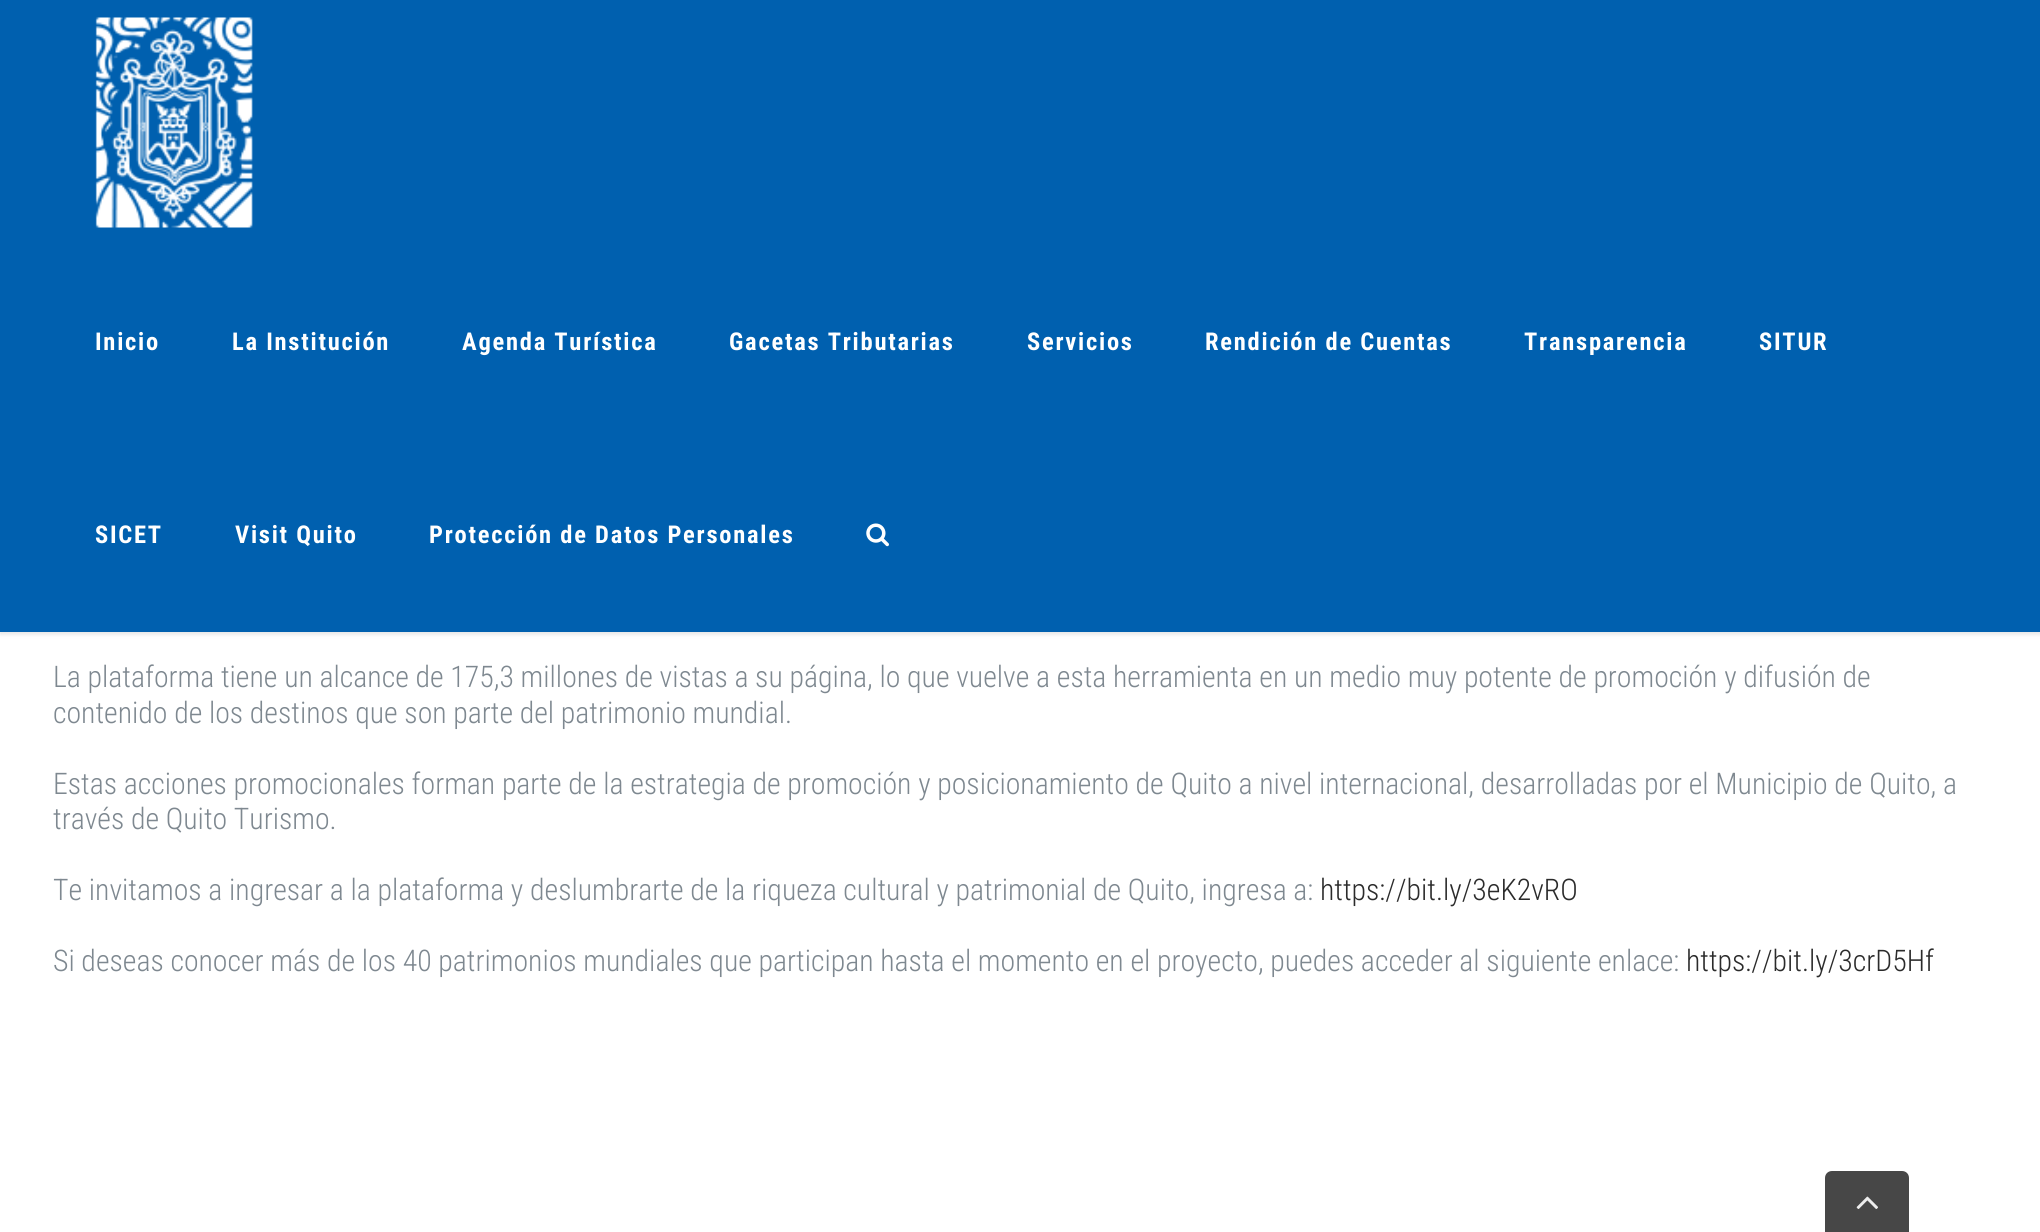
#include <cairo/cairo.h>
#include <math.h>
#include <stddef.h>


static void draw_spaced(cairo_t *cr, double x, double y, const char *s, double letter, double word) {
  cairo_move_to(cr, x, y);
  while (*s) {
    char ch[5] = {0};
    int n = 0;
    do ch[n++] = *s++; while ((*s & 0xC0) == 0x80);
    cairo_show_text(cr, ch);
    cairo_rel_move_to(cr, letter + word * (*ch == ' '), 0);
  }
}

static void rounded_rect(cairo_t *cr, double x, double y, double w, double h, double r) {
  cairo_new_sub_path(cr);
  cairo_arc(cr, x + w - r, y + h - r, r, 0, M_PI / 2);
  cairo_arc(cr, x + r, y + h - r, r, M_PI / 2, M_PI);
  cairo_arc(cr, x + r, y + r, r, M_PI, 1.5 * M_PI);
  cairo_arc(cr, x + w - r, y + r, r, 1.5 * M_PI, 2 * M_PI);
  cairo_close_path(cr);
}

static void draw_shadow(cairo_t *cr, double x, double y, double w, double h, double r, double blur, double alpha) {
  cairo_push_group_with_content(cr, CAIRO_CONTENT_ALPHA);
  cairo_set_operator(cr, CAIRO_OPERATOR_SOURCE);
  for (int i = 15; i >= -15 && fmin(w, h) + blur * i / 3 > 0; i -= 2) {
    double e = blur * i / 6;
    cairo_set_source_rgba(cr, 0, 0, 0, alpha * erfc((i - 1) / 8.5) / 2);
    rounded_rect(cr, x - e, y - e, w + 2 * e, h + 2 * e, fmax(0, fmin(r + e + blur * .6, fmin(w, h) / 2 + e)));
    cairo_fill(cr);
  }
  cairo_pattern_t *soft = cairo_pop_group(cr);
  cairo_mask(cr, soft);
  cairo_pattern_destroy(soft);
}

static void draw_image(cairo_t *cr, const char *path, double x, double y, double w, double h) {
  cairo_surface_t *image = cairo_image_surface_create_from_png(path);
  cairo_save(cr);
  cairo_set_source_surface(cr, image, x, y);
  cairo_rectangle(cr, x, y, w, h);
  cairo_fill(cr);
  cairo_restore(cr);
  cairo_surface_destroy(image);
}

static void draw(cairo_t *cr) {
  cairo_set_source_rgb(cr, 1, 1, 1);
  cairo_paint(cr);
  cairo_set_source_rgb(cr, 0, 0, 0);
  draw_shadow(cr, 0, 2, 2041, 632, 0, 2.5, 0.12);
  cairo_set_source_rgb(cr, 0, 96 / 255.0, 175 / 255.0);
  cairo_rectangle(cr, 0, 0, 2040, 632);
  cairo_fill(cr);
  draw_image(cr, "images/1.png", 95, 17, 158, 211);
  draw_image(cr, "images/2.png", 866, 523, 23, 24);
  cairo_set_source_rgb(cr, 71 / 255.0, 71 / 255.0, 71 / 255.0);
  cairo_new_path(cr);
  cairo_move_to(cr, 1832, 1171);
  cairo_line_to(cr, 1902, 1171);
  cairo_curve_to(cr, 1906, 1171, 1909, 1174, 1909, 1178);
  cairo_line_to(cr, 1909, 1232);
  cairo_line_to(cr, 1825, 1232);
  cairo_line_to(cr, 1825, 1178);
  cairo_curve_to(cr, 1825, 1174, 1828, 1171, 1832, 1171);
  cairo_close_path(cr);
  cairo_fill(cr);
  draw_image(cr, "images/3.png", 1856, 1196, 22, 13);
  cairo_select_font_face(cr, "Roboto Condensed", CAIRO_FONT_SLANT_NORMAL, CAIRO_FONT_WEIGHT_BOLD);
  cairo_set_font_size(cr, 24.5);
  cairo_set_source_rgb(cr, 1, 1, 1);
  draw_spaced(cr, 95, 350, "Inicio", 1.75, 0);
  draw_spaced(cr, 232, 350, "La Institución", 1.75, 0);
  draw_spaced(cr, 462, 350, "Agenda Turística", 1.75, 0);
  draw_spaced(cr, 729, 350, "Gacetas Tributarias", 1.75, 0);
  draw_spaced(cr, 1027, 350, "Servicios", 1.75, 0);
  draw_spaced(cr, 1205, 350, "Rendición de Cuentas", 1.75, 0);
  draw_spaced(cr, 1524, 350, "Transparencia", 1.75, 0);
  draw_spaced(cr, 1759, 350, "SITUR", 1.75, 0);
  draw_spaced(cr, 95, 543, "SICET", 1.75, 0);
  draw_spaced(cr, 235, 543, "Visit Quito", 1.75, 0);
  draw_spaced(cr, 429, 543, "Protección de Datos Personales", 1.75, 0);
  cairo_select_font_face(cr, "Roboto Condensed Light", CAIRO_FONT_SLANT_NORMAL, CAIRO_FONT_WEIGHT_NORMAL);
  cairo_set_font_size(cr, 29.75);
  cairo_set_source_rgb(cr, 126 / 255.0, 136 / 255.0, 144 / 255.0);
  cairo_move_to(cr, 53, 687);
  cairo_show_text(cr, "La plataforma tiene un alcance de 175,3 millones de vistas a su página, lo que vuelve a esta herramienta en un medio muy potente de promoción y difusión de");
  cairo_move_to(cr, 53, 723);
  cairo_show_text(cr, "contenido de los destinos que son parte del patrimonio mundial.");
  cairo_move_to(cr, 53, 794);
  cairo_show_text(cr, "Estas acciones promocionales forman parte de la estrategia de promoción y posicionamiento de Quito a nivel internacional, desarrolladas por el Municipio de Quito, a");
  cairo_move_to(cr, 53, 829);
  cairo_show_text(cr, "través de Quito Turismo.");
  cairo_move_to(cr, 53, 900);
  cairo_show_text(cr, "Te invitamos a ingresar a la plataforma y deslumbrarte de la riqueza cultural y patrimonial de Quito, ingresa a:");
  cairo_set_source_rgb(cr, 43 / 255.0, 43 / 255.0, 43 / 255.0);
  cairo_move_to(cr, 1320, 900);
  cairo_show_text(cr, "https://bit.ly/3eK2vRO");
  cairo_set_source_rgb(cr, 126 / 255.0, 136 / 255.0, 144 / 255.0);
  cairo_move_to(cr, 53, 971);
  cairo_show_text(cr, "Si deseas conocer más de los 40 patrimonios mundiales que participan hasta el momento en el proyecto, puedes acceder al siguiente enlace:");
  cairo_set_source_rgb(cr, 43 / 255.0, 43 / 255.0, 43 / 255.0);
  cairo_move_to(cr, 1686, 971);
  cairo_show_text(cr, "https://bit.ly/3crD5Hf");
}

int main(void) {
  cairo_surface_t *surface = cairo_image_surface_create(CAIRO_FORMAT_RGB24, 2040, 1232);
  cairo_t *cr = cairo_create(surface);
  cairo_font_options_t *options = cairo_font_options_create();
  cairo_font_options_set_hint_metrics(options, CAIRO_HINT_METRICS_OFF);
  cairo_font_options_set_hint_style(options, CAIRO_HINT_STYLE_NONE);
  cairo_set_font_options(cr, options);
  cairo_set_miter_limit(cr, 4);
  draw(cr);
  cairo_surface_write_to_png(surface, "out.png");
  cairo_font_options_destroy(options);
  cairo_destroy(cr);
  cairo_surface_destroy(surface);
  return 0;
}
